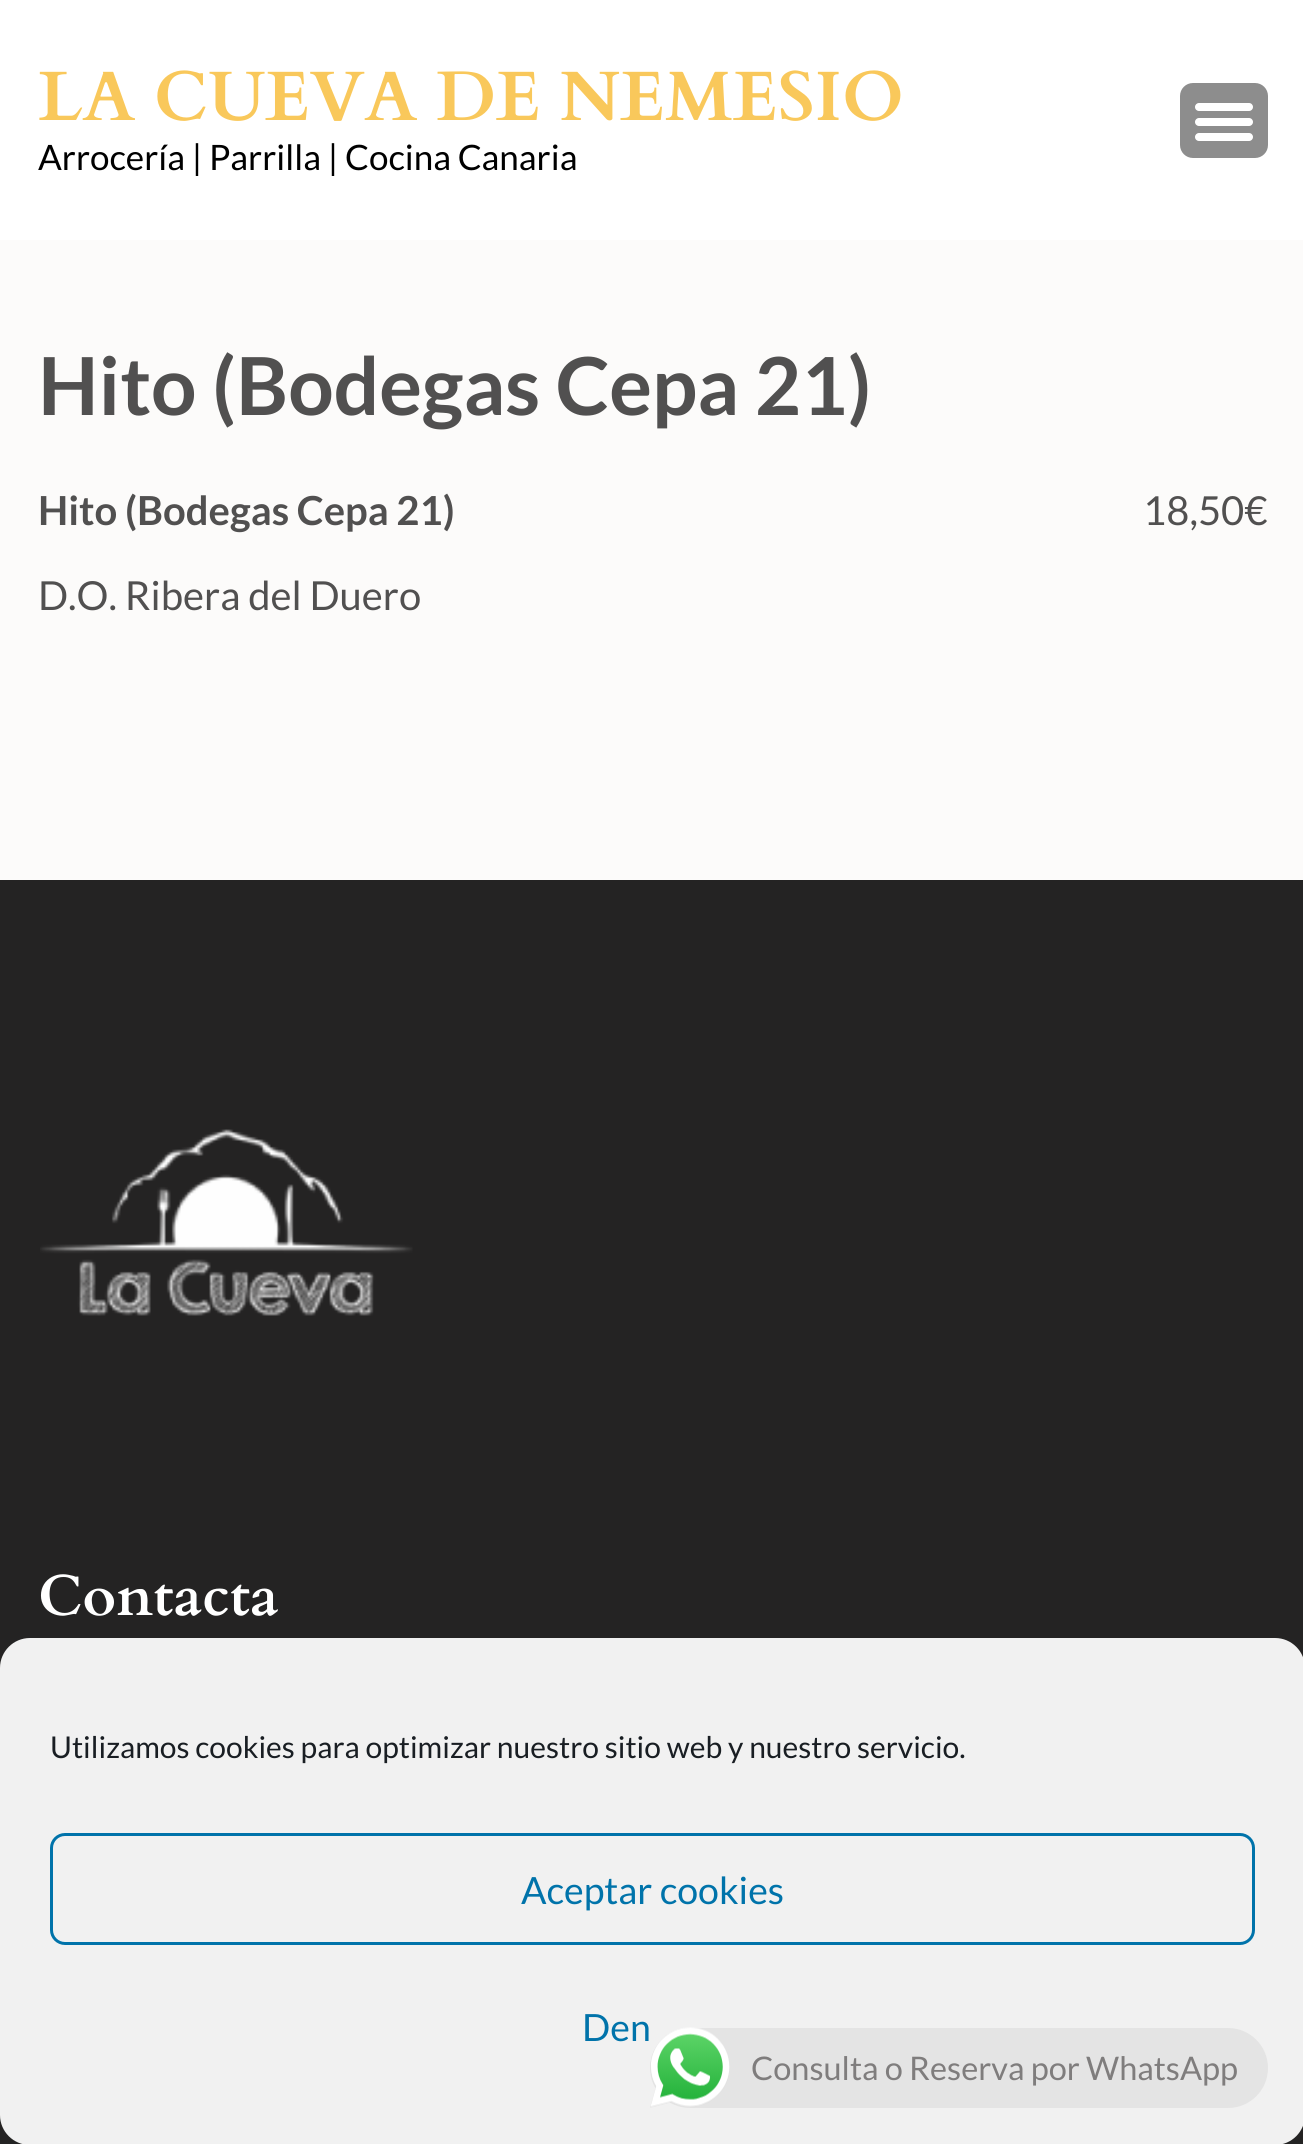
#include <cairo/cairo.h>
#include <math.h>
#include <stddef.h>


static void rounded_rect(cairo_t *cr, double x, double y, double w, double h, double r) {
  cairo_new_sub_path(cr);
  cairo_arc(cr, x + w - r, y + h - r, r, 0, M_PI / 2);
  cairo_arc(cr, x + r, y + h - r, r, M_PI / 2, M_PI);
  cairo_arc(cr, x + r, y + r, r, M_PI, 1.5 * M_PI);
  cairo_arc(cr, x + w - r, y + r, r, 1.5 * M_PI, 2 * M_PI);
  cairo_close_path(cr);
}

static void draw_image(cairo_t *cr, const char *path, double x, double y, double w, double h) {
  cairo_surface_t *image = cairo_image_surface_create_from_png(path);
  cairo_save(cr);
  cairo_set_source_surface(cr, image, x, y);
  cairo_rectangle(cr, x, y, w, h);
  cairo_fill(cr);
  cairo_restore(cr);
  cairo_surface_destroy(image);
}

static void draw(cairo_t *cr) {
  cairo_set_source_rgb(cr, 252 / 255.0, 251 / 255.0, 250 / 255.0);
  cairo_paint(cr);
  cairo_set_source_rgb(cr, 1, 1, 1);
  cairo_rectangle(cr, 0, 0, 1303, 240);
  cairo_fill(cr);
  cairo_set_source_rgb(cr, 141 / 255.0, 141 / 255.0, 141 / 255.0);
  rounded_rect(cr, 1181.5, 84.5, 85, 72, 11.5);
  cairo_fill_preserve(cr);
  cairo_set_line_width(cr, 3);
  cairo_stroke(cr);
  cairo_set_source_rgb(cr, 1, 1, 1);
  rounded_rect(cr, 1195, 103, 58, 8, 4);
  cairo_fill(cr);
  rounded_rect(cr, 1195, 118, 58, 8, 4);
  cairo_fill(cr);
  rounded_rect(cr, 1195, 133, 58, 8, 4);
  cairo_fill(cr);
  cairo_set_source_rgb(cr, 36 / 255.0, 35 / 255.0, 35 / 255.0);
  cairo_rectangle(cr, 0, 880, 1303, 1264);
  cairo_fill(cr);
  draw_image(cr, "images/1.png", 40, 1129, 373, 187);
  cairo_set_source_rgb(cr, 241 / 255.0, 241 / 255.0, 241 / 255.0);
  rounded_rect(cr, 0, 1638, 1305, 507, 30);
  cairo_fill(cr);
  rounded_rect(cr, 51.5, 1834.5, 1202, 109, 13.5);
  cairo_set_source_rgb(cr, 0, 115 / 255.0, 170 / 255.0);
  cairo_stroke(cr);
  cairo_set_source_rgb(cr, 228 / 255.0, 228 / 255.0, 228 / 255.0);
  rounded_rect(cr, 650, 2028, 618, 80, 40);
  cairo_fill(cr);
  draw_image(cr, "images/2.png", 650, 2027, 80, 81);
  cairo_select_font_face(cr, "Cardo", CAIRO_FONT_SLANT_NORMAL, CAIRO_FONT_WEIGHT_BOLD);
  cairo_set_font_size(cr, 70);
  cairo_set_source_rgb(cr, 249 / 255.0, 200 / 255.0, 91 / 255.0);
  cairo_move_to(cr, 38, 120);
  cairo_show_text(cr, "LA CUEVA DE NEMESIO");
  cairo_select_font_face(cr, "Lato", CAIRO_FONT_SLANT_NORMAL, CAIRO_FONT_WEIGHT_NORMAL);
  cairo_set_font_size(cr, 35);
  cairo_set_source_rgb(cr, 0, 0, 0);
  cairo_move_to(cr, 38, 170);
  cairo_show_text(cr, "Arrocería | Parrilla | Cocina Canaria");
  cairo_select_font_face(cr, "Lato", CAIRO_FONT_SLANT_NORMAL, CAIRO_FONT_WEIGHT_BOLD);
  cairo_set_font_size(cr, 80);
  cairo_set_source_rgb(cr, 81 / 255.0, 80 / 255.0, 80 / 255.0);
  cairo_move_to(cr, 38, 415);
  cairo_show_text(cr, "Hito (Bodegas Cepa 21)");
  cairo_set_font_size(cr, 40);
  cairo_move_to(cr, 38, 525);
  cairo_show_text(cr, "Hito (Bodegas Cepa 21)");
  cairo_select_font_face(cr, "Lato", CAIRO_FONT_SLANT_NORMAL, CAIRO_FONT_WEIGHT_NORMAL);
  cairo_move_to(cr, 1143, 525);
  cairo_show_text(cr, "18,50€");
  cairo_move_to(cr, 38, 610);
  cairo_show_text(cr, "D.O. Ribera del Duero");
  cairo_select_font_face(cr, "Cardo", CAIRO_FONT_SLANT_NORMAL, CAIRO_FONT_WEIGHT_BOLD);
  cairo_set_font_size(cr, 57.5);
  cairo_set_source_rgb(cr, 1, 1, 1);
  cairo_move_to(cr, 38, 1615);
  cairo_show_text(cr, "Contacta");
  cairo_select_font_face(cr, "Lato", CAIRO_FONT_SLANT_NORMAL, CAIRO_FONT_WEIGHT_NORMAL);
  cairo_set_font_size(cr, 30);
  cairo_set_source_rgb(cr, 25 / 255.0, 30 / 255.0, 35 / 255.0);
  cairo_move_to(cr, 50, 1758);
  cairo_show_text(cr, "Utilizamos cookies para optimizar nuestro sitio web y nuestro servicio.");
  cairo_set_font_size(cr, 37.5);
  cairo_set_source_rgb(cr, 0, 115 / 255.0, 170 / 255.0);
  cairo_move_to(cr, 521, 1904);
  cairo_show_text(cr, "Aceptar cookies");
  cairo_move_to(cr, 582, 2041);
  cairo_show_text(cr, "Den");
  cairo_set_font_size(cr, 32.5);
  cairo_set_source_rgb(cr, 127 / 255.0, 125 / 255.0, 125 / 255.0);
  cairo_move_to(cr, 751, 2080);
  cairo_show_text(cr, "Consulta o Reserva por WhatsApp");
}

int main(void) {
  cairo_surface_t *surface = cairo_image_surface_create(CAIRO_FORMAT_RGB24, 1303, 2144);
  cairo_t *cr = cairo_create(surface);
  cairo_font_options_t *options = cairo_font_options_create();
  cairo_font_options_set_hint_metrics(options, CAIRO_HINT_METRICS_OFF);
  cairo_font_options_set_hint_style(options, CAIRO_HINT_STYLE_NONE);
  cairo_set_font_options(cr, options);
  cairo_set_miter_limit(cr, 4);
  draw(cr);
  cairo_surface_write_to_png(surface, "out.png");
  cairo_font_options_destroy(options);
  cairo_destroy(cr);
  cairo_surface_destroy(surface);
  return 0;
}
